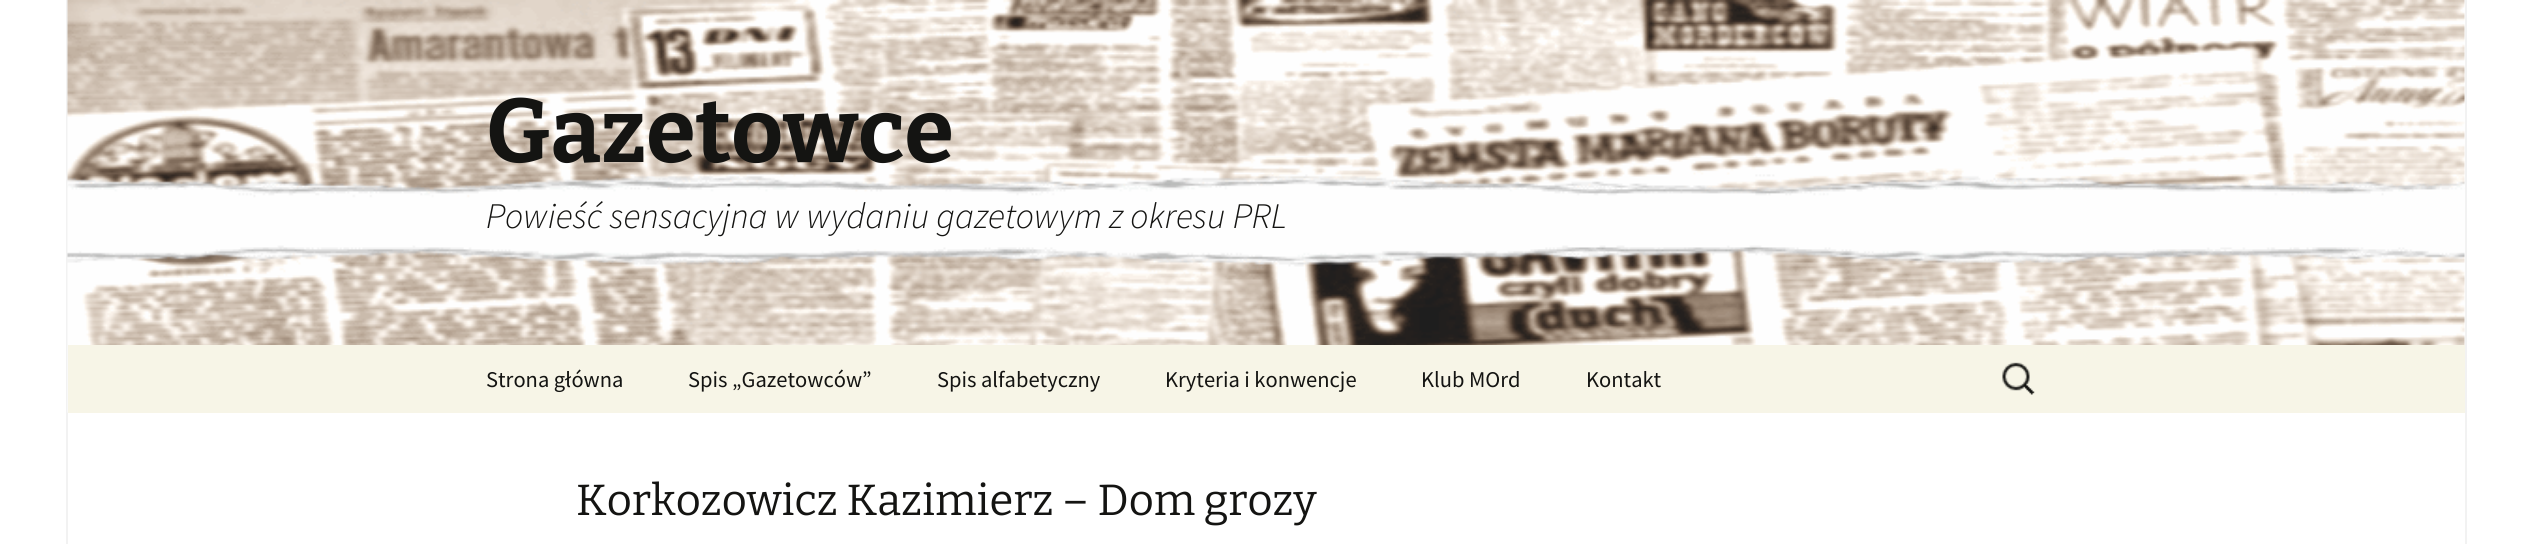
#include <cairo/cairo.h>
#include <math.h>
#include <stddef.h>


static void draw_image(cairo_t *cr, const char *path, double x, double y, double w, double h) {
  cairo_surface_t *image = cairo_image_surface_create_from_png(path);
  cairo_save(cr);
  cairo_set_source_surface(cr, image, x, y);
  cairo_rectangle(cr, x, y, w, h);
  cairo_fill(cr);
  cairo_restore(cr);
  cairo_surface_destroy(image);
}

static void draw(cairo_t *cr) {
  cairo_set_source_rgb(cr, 1, 1, 1);
  cairo_paint(cr);
  cairo_set_source_rgb(cr, 242 / 255.0, 242 / 255.0, 242 / 255.0);
  cairo_rectangle(cr, 2465, 0, 2, 544);
  cairo_fill(cr);
  cairo_rectangle(cr, 66, 0, 2, 544);
  cairo_fill(cr);
  draw_image(cr, "images/1.png", 67, 0, 2398, 413);
  cairo_set_source_rgb(cr, 247 / 255.0, 245 / 255.0, 231 / 255.0);
  cairo_rectangle(cr, 68, 345, 2397, 68);
  cairo_fill(cr);
  draw_image(cr, "images/2.png", 2002, 362, 33, 33);
  cairo_select_font_face(cr, "Bitter", CAIRO_FONT_SLANT_NORMAL, CAIRO_FONT_WEIGHT_BOLD);
  cairo_set_font_size(cr, 90);
  cairo_set_source_rgb(cr, 20 / 255.0, 20 / 255.0, 18 / 255.0);
  cairo_move_to(cr, 486, 162);
  cairo_show_text(cr, "Gazetowce");
  cairo_select_font_face(cr, "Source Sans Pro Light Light", CAIRO_FONT_SLANT_ITALIC, CAIRO_FONT_WEIGHT_NORMAL);
  cairo_set_font_size(cr, 36);
  cairo_move_to(cr, 486, 228);
  cairo_show_text(cr, "Powieść sensacyjna w wydaniu gazetowym z okresu PRL");
  cairo_select_font_face(cr, "Source Sans Pro", CAIRO_FONT_SLANT_NORMAL, CAIRO_FONT_WEIGHT_NORMAL);
  cairo_set_font_size(cr, 22.5);
  cairo_move_to(cr, 486, 387);
  cairo_show_text(cr, "Strona główna");
  cairo_move_to(cr, 688, 387);
  cairo_show_text(cr, "Spis „Gazetowców”");
  cairo_move_to(cr, 937, 387);
  cairo_show_text(cr, "Spis alfabetyczny");
  cairo_move_to(cr, 1165, 387);
  cairo_show_text(cr, "Kryteria i konwencje");
  cairo_move_to(cr, 1421, 387);
  cairo_show_text(cr, "Klub MOrd");
  cairo_move_to(cr, 1586, 387);
  cairo_show_text(cr, "Kontakt");
  cairo_select_font_face(cr, "Bitter", CAIRO_FONT_SLANT_NORMAL, CAIRO_FONT_WEIGHT_NORMAL);
  cairo_set_font_size(cr, 43.5);
  cairo_move_to(cr, 576, 515);
  cairo_show_text(cr, "Korkozowicz Kazimierz – Dom grozy");
}

int main(void) {
  cairo_surface_t *surface = cairo_image_surface_create(CAIRO_FORMAT_RGB24, 2531, 544);
  cairo_t *cr = cairo_create(surface);
  cairo_font_options_t *options = cairo_font_options_create();
  cairo_font_options_set_hint_metrics(options, CAIRO_HINT_METRICS_OFF);
  cairo_font_options_set_hint_style(options, CAIRO_HINT_STYLE_NONE);
  cairo_set_font_options(cr, options);
  cairo_set_miter_limit(cr, 4);
  draw(cr);
  cairo_surface_write_to_png(surface, "out.png");
  cairo_font_options_destroy(options);
  cairo_destroy(cr);
  cairo_surface_destroy(surface);
  return 0;
}
